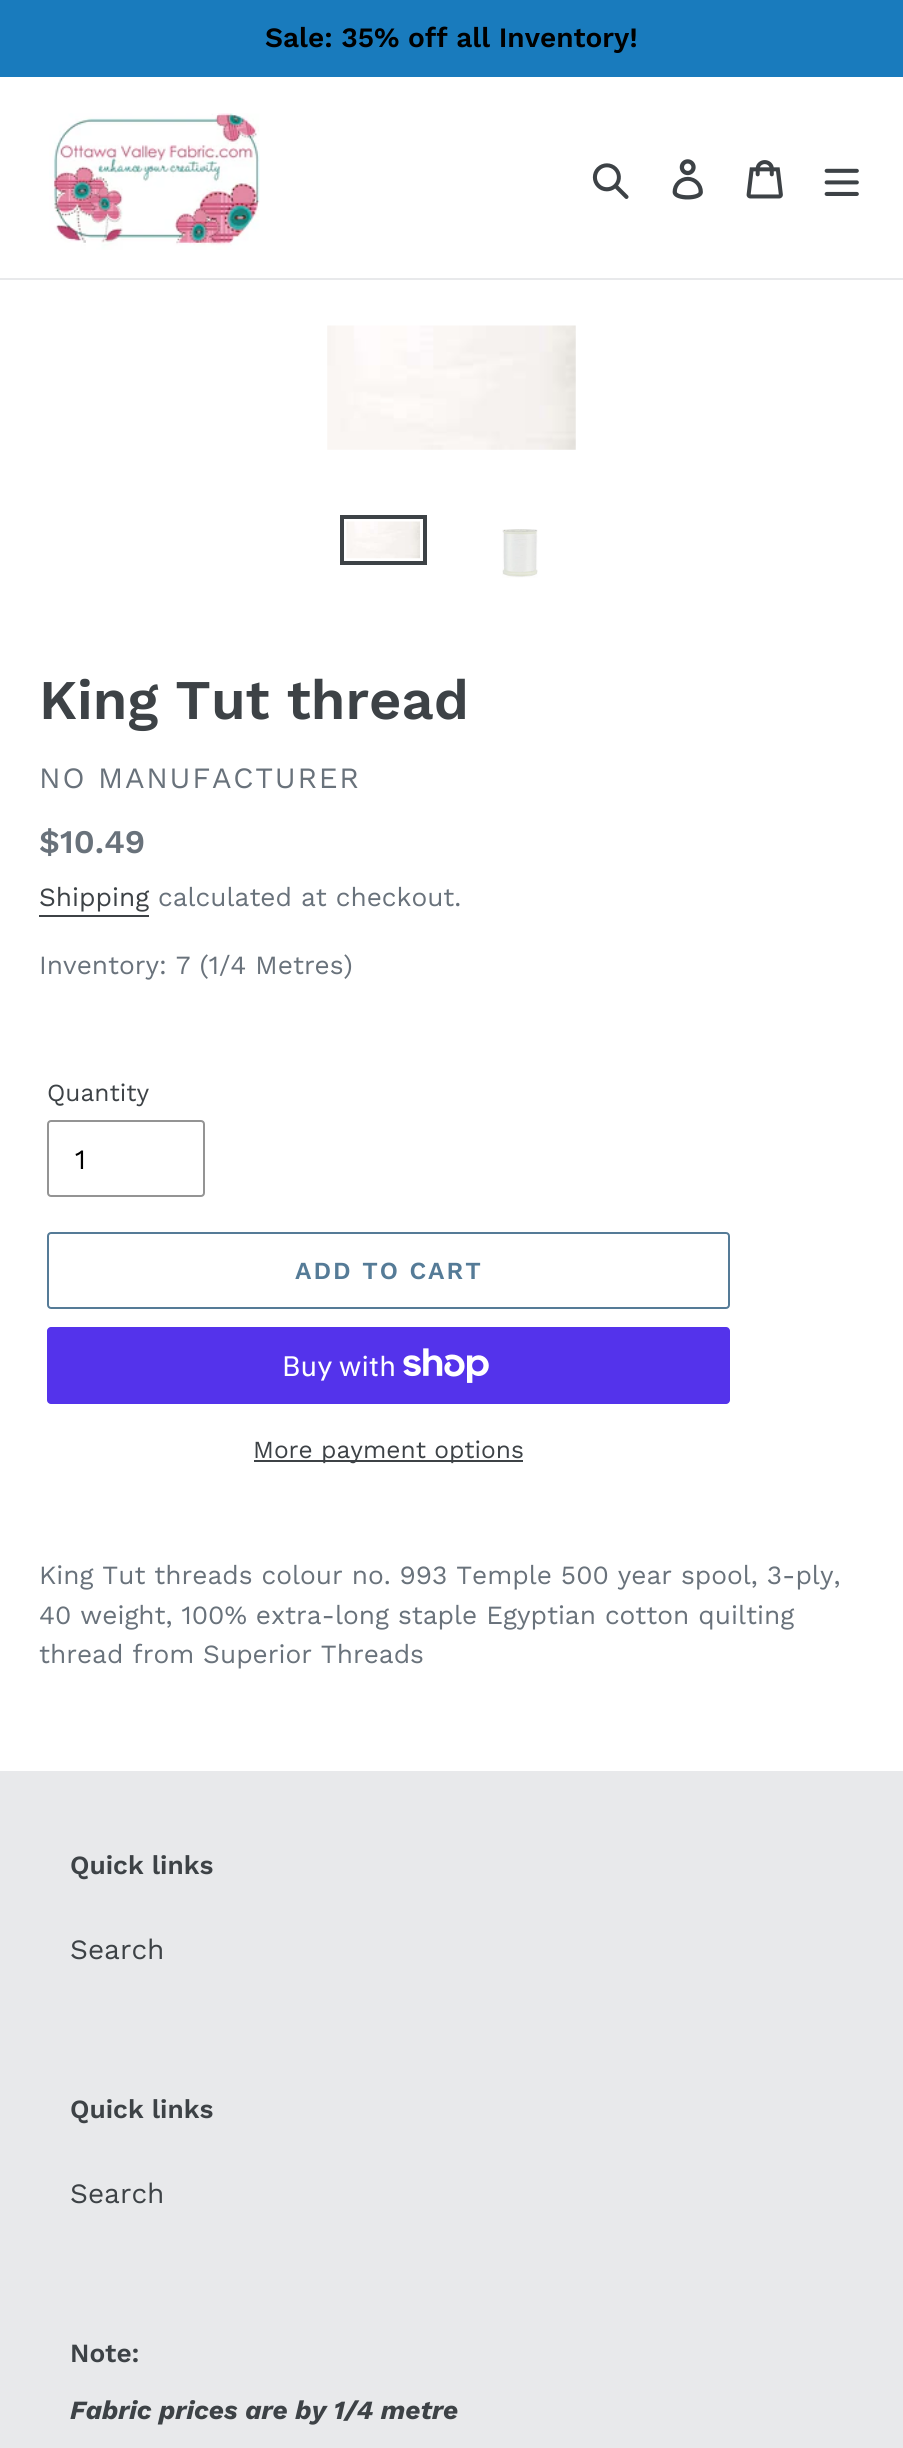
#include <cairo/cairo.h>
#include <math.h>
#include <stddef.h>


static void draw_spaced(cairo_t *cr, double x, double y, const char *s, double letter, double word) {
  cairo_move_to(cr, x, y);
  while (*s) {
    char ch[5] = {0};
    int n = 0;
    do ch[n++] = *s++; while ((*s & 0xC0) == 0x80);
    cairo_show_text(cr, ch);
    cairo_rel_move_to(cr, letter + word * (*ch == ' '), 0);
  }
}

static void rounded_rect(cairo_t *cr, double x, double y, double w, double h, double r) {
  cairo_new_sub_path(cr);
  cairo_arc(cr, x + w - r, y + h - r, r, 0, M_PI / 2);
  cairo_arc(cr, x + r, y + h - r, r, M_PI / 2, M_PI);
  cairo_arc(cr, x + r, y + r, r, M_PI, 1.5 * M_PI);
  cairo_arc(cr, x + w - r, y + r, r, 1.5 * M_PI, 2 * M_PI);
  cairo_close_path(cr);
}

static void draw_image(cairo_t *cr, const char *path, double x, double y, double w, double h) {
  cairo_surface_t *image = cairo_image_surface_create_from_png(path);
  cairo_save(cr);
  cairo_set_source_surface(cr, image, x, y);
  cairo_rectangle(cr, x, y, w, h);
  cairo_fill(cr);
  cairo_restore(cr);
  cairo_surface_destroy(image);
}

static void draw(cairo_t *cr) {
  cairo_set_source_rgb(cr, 1, 1, 1);
  cairo_paint(cr);
  cairo_set_source_rgb(cr, 25 / 255.0, 123 / 255.0, 189 / 255.0);
  cairo_rectangle(cr, 0, 0, 903, 77);
  cairo_fill(cr);
  cairo_set_source_rgb(cr, 232 / 255.0, 233 / 255.0, 235 / 255.0);
  cairo_rectangle(cr, 0, 278, 903, 2);
  cairo_fill(cr);
  draw_image(cr, "images/1.png", 49, 113, 211, 137);
  draw_image(cr, "images/2.png", 592, 163, 37, 36);
  draw_image(cr, "images/3.png", 672, 159, 31, 41);
  draw_image(cr, "images/4.png", 746, 160, 37, 39);
  draw_image(cr, "images/5.png", 824, 168, 35, 28);
  draw_image(cr, "images/6.png", 327, 325, 249, 125);
  cairo_rectangle(cr, 342, 517, 83, 46);
  cairo_set_source_rgb(cr, 61 / 255.0, 66 / 255.0, 70 / 255.0);
  cairo_set_line_width(cr, 4);
  cairo_stroke(cr);
  draw_image(cr, "images/7.png", 346, 521, 74, 38);
  draw_image(cr, "images/8.png", 502, 529, 36, 49);
  cairo_rectangle(cr, 39, 915, 110, 2);
  cairo_fill(cr);
  rounded_rect(cr, 48, 1121, 156, 75, 3);
  cairo_set_source_rgb(cr, 148 / 255.0, 148 / 255.0, 148 / 255.0);
  cairo_set_line_width(cr, 2);
  cairo_stroke(cr);
  rounded_rect(cr, 48, 1233, 681, 75, 3);
  cairo_set_source_rgb(cr, 85 / 255.0, 123 / 255.0, 151 / 255.0);
  cairo_stroke(cr);
  cairo_set_source_rgb(cr, 84 / 255.0, 51 / 255.0, 235 / 255.0);
  rounded_rect(cr, 47, 1327, 683, 77, 4);
  cairo_fill(cr);
  draw_image(cr, "images/9.png", 403, 1348, 86, 35);
  cairo_set_source_rgb(cr, 61 / 255.0, 66 / 255.0, 70 / 255.0);
  cairo_rectangle(cr, 254, 1460, 269, 2);
  cairo_fill(cr);
  cairo_set_source_rgb(cr, 232 / 255.0, 233 / 255.0, 235 / 255.0);
  cairo_rectangle(cr, 0, 1771, 903, 677);
  cairo_fill(cr);
  cairo_select_font_face(cr, "Work Sans SemiBold", CAIRO_FONT_SLANT_NORMAL, CAIRO_FONT_WEIGHT_NORMAL);
  cairo_set_font_size(cr, 28);
  cairo_set_source_rgb(cr, 0, 0, 0);
  cairo_move_to(cr, 265, 47);
  cairo_show_text(cr, "Sale: 35% off all Inventory!");
  cairo_set_font_size(cr, 56);
  cairo_set_source_rgb(cr, 61 / 255.0, 66 / 255.0, 70 / 255.0);
  cairo_move_to(cr, 39, 719);
  cairo_show_text(cr, "King Tut thread");
  cairo_select_font_face(cr, "Work Sans", CAIRO_FONT_SLANT_NORMAL, CAIRO_FONT_WEIGHT_NORMAL);
  cairo_set_font_size(cr, 29.5);
  cairo_set_source_rgb(cr, 105 / 255.0, 114 / 255.0, 123 / 255.0);
  draw_spaced(cr, 39, 788, "NO MANUFACTURER", 1.75, 0);
  cairo_select_font_face(cr, "Work Sans SemiBold", CAIRO_FONT_SLANT_NORMAL, CAIRO_FONT_WEIGHT_NORMAL);
  cairo_set_font_size(cr, 33);
  cairo_move_to(cr, 39, 853);
  cairo_show_text(cr, "$10.49");
  cairo_select_font_face(cr, "Work Sans", CAIRO_FONT_SLANT_NORMAL, CAIRO_FONT_WEIGHT_NORMAL);
  cairo_set_font_size(cr, 26.25);
  cairo_set_source_rgb(cr, 61 / 255.0, 66 / 255.0, 70 / 255.0);
  cairo_move_to(cr, 39, 906);
  cairo_show_text(cr, "Shipping");
  cairo_set_source_rgb(cr, 105 / 255.0, 114 / 255.0, 123 / 255.0);
  cairo_move_to(cr, 158, 906);
  cairo_show_text(cr, "calculated at checkout.");
  cairo_move_to(cr, 39, 974);
  cairo_show_text(cr, "Inventory: 7 (1/4 Metres)");
  cairo_set_font_size(cr, 24.5);
  cairo_set_source_rgb(cr, 61 / 255.0, 66 / 255.0, 70 / 255.0);
  cairo_move_to(cr, 47, 1101);
  cairo_show_text(cr, "Quantity");
  cairo_set_font_size(cr, 28);
  cairo_set_source_rgb(cr, 0, 0, 0);
  cairo_move_to(cr, 75, 1169);
  cairo_show_text(cr, "1");
  cairo_select_font_face(cr, "Work Sans SemiBold", CAIRO_FONT_SLANT_NORMAL, CAIRO_FONT_WEIGHT_NORMAL);
  cairo_set_font_size(cr, 24.5);
  cairo_set_source_rgb(cr, 85 / 255.0, 123 / 255.0, 151 / 255.0);
  draw_spaced(cr, 295, 1279, "ADD TO CART", 2, 0);
  cairo_select_font_face(cr, "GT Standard", CAIRO_FONT_SLANT_NORMAL, CAIRO_FONT_WEIGHT_NORMAL);
  cairo_set_font_size(cr, 28);
  cairo_set_source_rgb(cr, 1, 1, 1);
  cairo_move_to(cr, 282, 1376);
  cairo_show_text(cr, "Buy with");
  cairo_select_font_face(cr, "Work Sans", CAIRO_FONT_SLANT_NORMAL, CAIRO_FONT_WEIGHT_NORMAL);
  cairo_set_font_size(cr, 24.5);
  cairo_set_source_rgb(cr, 61 / 255.0, 66 / 255.0, 70 / 255.0);
  cairo_move_to(cr, 253, 1458);
  cairo_show_text(cr, "More payment options");
  cairo_set_font_size(cr, 26.25);
  cairo_set_source_rgb(cr, 105 / 255.0, 114 / 255.0, 123 / 255.0);
  cairo_move_to(cr, 39, 1584);
  cairo_show_text(cr, "King Tut threads colour no. 993 Temple 500 year spool, 3-ply,");
  cairo_move_to(cr, 39, 1624);
  cairo_show_text(cr, "40 weight, 100% extra-long staple Egyptian cotton quilting");
  cairo_move_to(cr, 39, 1663);
  cairo_show_text(cr, "thread from Superior Threads");
  cairo_select_font_face(cr, "Work Sans SemiBold", CAIRO_FONT_SLANT_NORMAL, CAIRO_FONT_WEIGHT_NORMAL);
  cairo_set_source_rgb(cr, 61 / 255.0, 66 / 255.0, 70 / 255.0);
  cairo_move_to(cr, 70, 1874);
  cairo_show_text(cr, "Quick links");
  cairo_select_font_face(cr, "Work Sans", CAIRO_FONT_SLANT_NORMAL, CAIRO_FONT_WEIGHT_NORMAL);
  cairo_set_font_size(cr, 28);
  cairo_move_to(cr, 70, 1959);
  cairo_show_text(cr, "Search");
  cairo_select_font_face(cr, "Work Sans SemiBold", CAIRO_FONT_SLANT_NORMAL, CAIRO_FONT_WEIGHT_NORMAL);
  cairo_set_font_size(cr, 26.25);
  cairo_move_to(cr, 70, 2118);
  cairo_show_text(cr, "Quick links");
  cairo_select_font_face(cr, "Work Sans", CAIRO_FONT_SLANT_NORMAL, CAIRO_FONT_WEIGHT_NORMAL);
  cairo_set_font_size(cr, 28);
  cairo_move_to(cr, 70, 2203);
  cairo_show_text(cr, "Search");
  cairo_select_font_face(cr, "Work Sans SemiBold", CAIRO_FONT_SLANT_NORMAL, CAIRO_FONT_WEIGHT_NORMAL);
  cairo_set_font_size(cr, 26.25);
  cairo_move_to(cr, 70, 2362);
  cairo_show_text(cr, "Note:");
  cairo_select_font_face(cr, "Work Sans", CAIRO_FONT_SLANT_ITALIC, CAIRO_FONT_WEIGHT_BOLD);
  cairo_move_to(cr, 70, 2419);
  cairo_show_text(cr, "Fabric prices are by 1/4 metre");
}

int main(void) {
  cairo_surface_t *surface = cairo_image_surface_create(CAIRO_FORMAT_RGB24, 903, 2448);
  cairo_t *cr = cairo_create(surface);
  cairo_font_options_t *options = cairo_font_options_create();
  cairo_font_options_set_hint_metrics(options, CAIRO_HINT_METRICS_OFF);
  cairo_font_options_set_hint_style(options, CAIRO_HINT_STYLE_NONE);
  cairo_set_font_options(cr, options);
  cairo_set_miter_limit(cr, 4);
  draw(cr);
  cairo_surface_write_to_png(surface, "out.png");
  cairo_font_options_destroy(options);
  cairo_destroy(cr);
  cairo_surface_destroy(surface);
  return 0;
}
